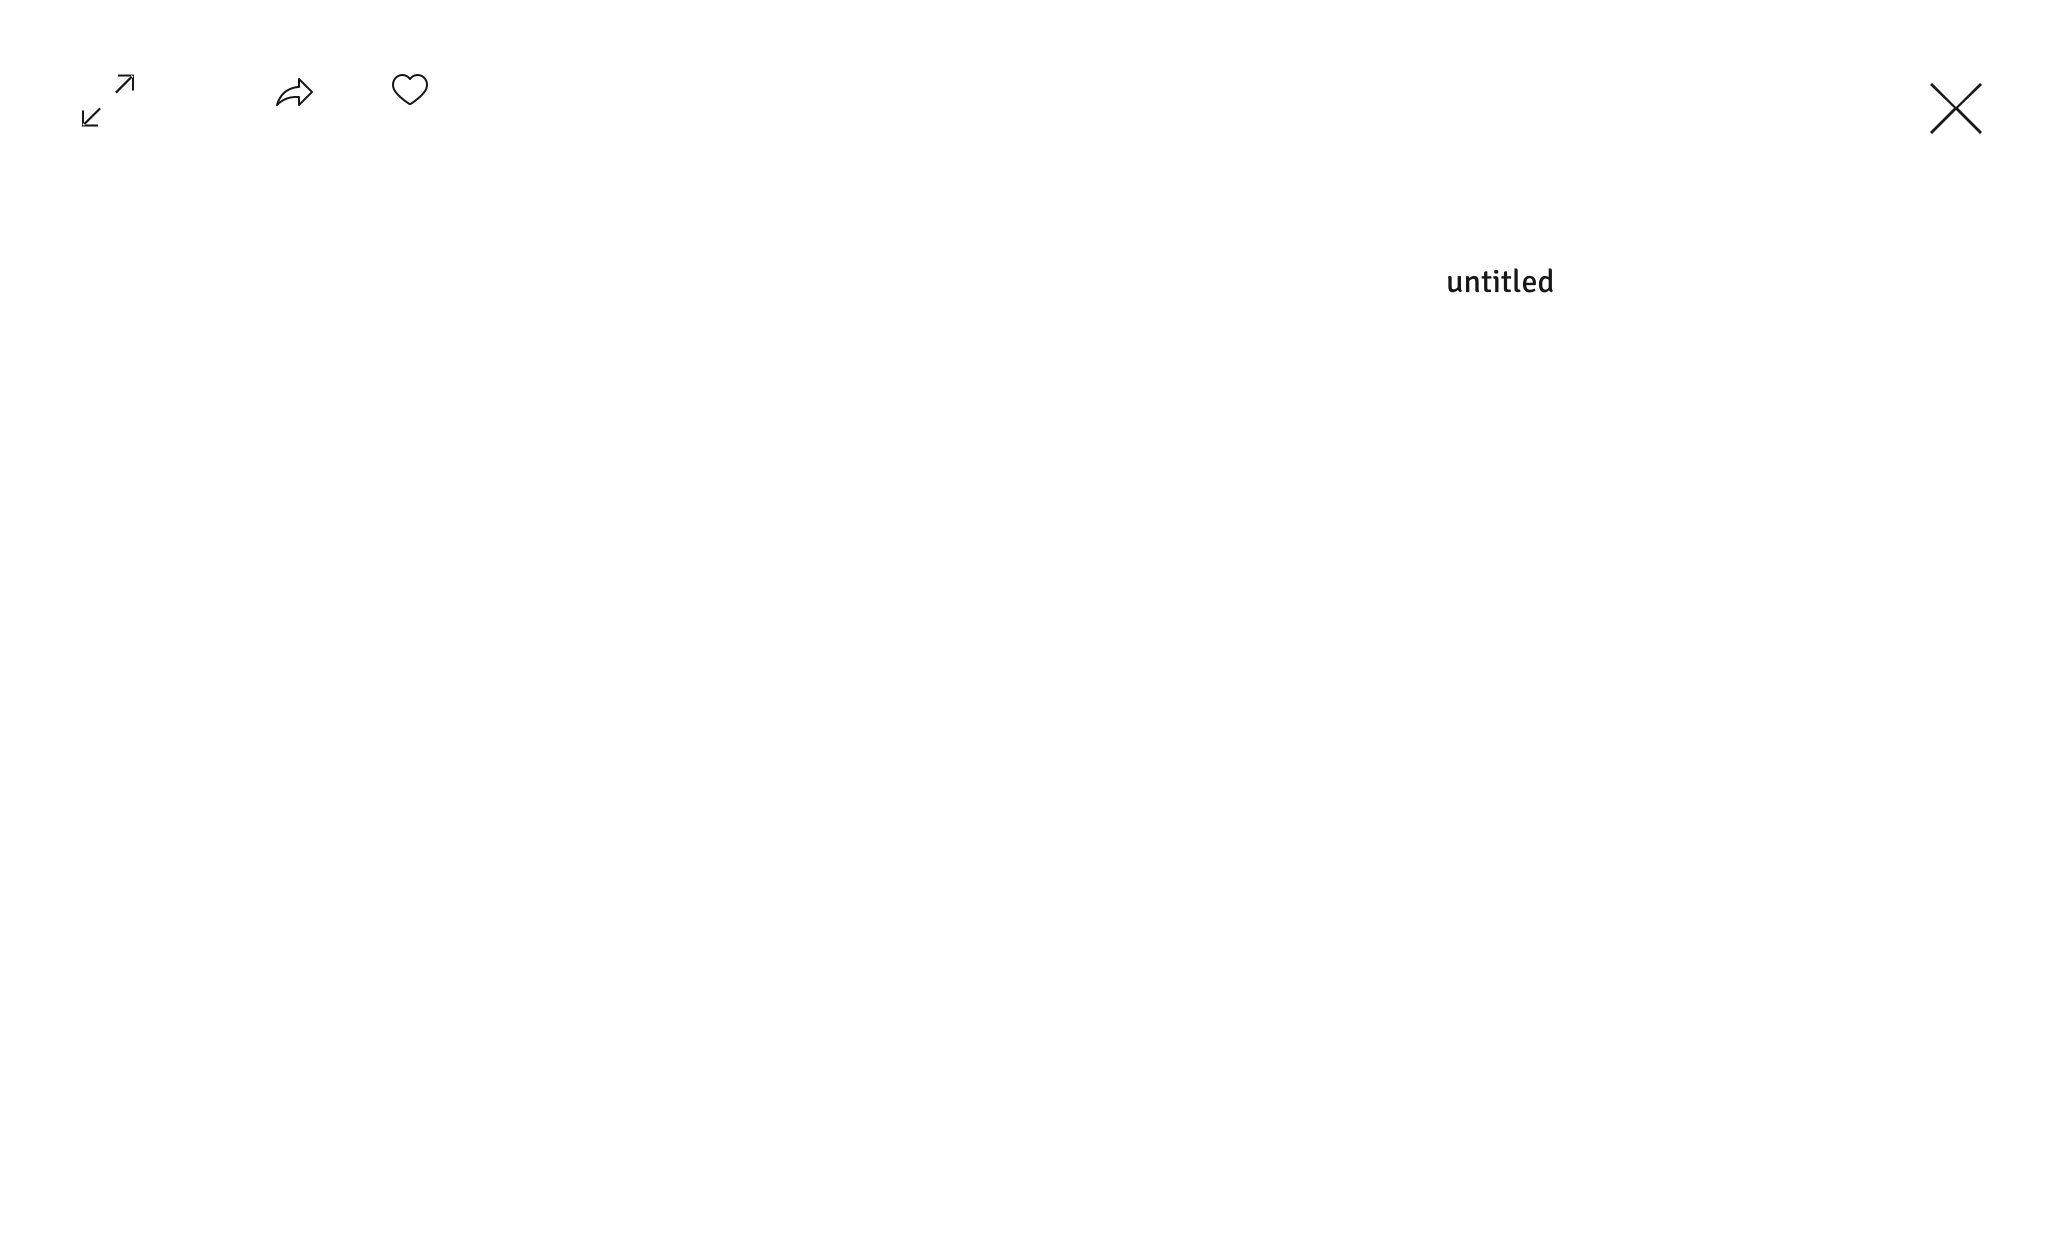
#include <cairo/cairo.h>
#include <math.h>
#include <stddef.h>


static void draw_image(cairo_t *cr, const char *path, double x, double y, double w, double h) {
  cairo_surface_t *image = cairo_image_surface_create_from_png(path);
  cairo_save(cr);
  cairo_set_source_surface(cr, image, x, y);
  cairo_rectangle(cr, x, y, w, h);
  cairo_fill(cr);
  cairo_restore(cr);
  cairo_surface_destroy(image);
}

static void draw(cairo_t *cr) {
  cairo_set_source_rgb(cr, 1, 1, 1);
  cairo_paint(cr);
  draw_image(cr, "images/1.png", 82, 74, 52, 53);
  draw_image(cr, "images/2.png", 276, 78, 37, 28);
  draw_image(cr, "images/3.png", 392, 74, 36, 31);
  cairo_set_source_rgb(cr, 24 / 255.0, 23 / 255.0, 23 / 255.0);
  cairo_new_path(cr);
  cairo_move_to(cr, 1958, 108);
  cairo_line_to(cr, 1982, 85);
  cairo_line_to(cr, 1980, 83);
  cairo_line_to(cr, 1956, 107);
  cairo_line_to(cr, 1932, 83);
  cairo_line_to(cr, 1930, 85);
  cairo_line_to(cr, 1954, 108);
  cairo_line_to(cr, 1930, 132);
  cairo_line_to(cr, 1932, 134);
  cairo_line_to(cr, 1956, 110);
  cairo_line_to(cr, 1980, 134);
  cairo_line_to(cr, 1982, 132);
  cairo_close_path(cr);
  cairo_fill(cr);
  cairo_select_font_face(cr, "Signika", CAIRO_FONT_SLANT_NORMAL, CAIRO_FONT_WEIGHT_NORMAL);
  cairo_set_font_size(cr, 32);
  cairo_move_to(cr, 1446, 292);
  cairo_show_text(cr, "untitled");
}

int main(void) {
  cairo_surface_t *surface = cairo_image_surface_create(CAIRO_FORMAT_RGB24, 2053, 1258);
  cairo_t *cr = cairo_create(surface);
  cairo_font_options_t *options = cairo_font_options_create();
  cairo_font_options_set_hint_metrics(options, CAIRO_HINT_METRICS_OFF);
  cairo_font_options_set_hint_style(options, CAIRO_HINT_STYLE_NONE);
  cairo_set_font_options(cr, options);
  cairo_set_miter_limit(cr, 4);
  draw(cr);
  cairo_surface_write_to_png(surface, "out.png");
  cairo_font_options_destroy(options);
  cairo_destroy(cr);
  cairo_surface_destroy(surface);
  return 0;
}
